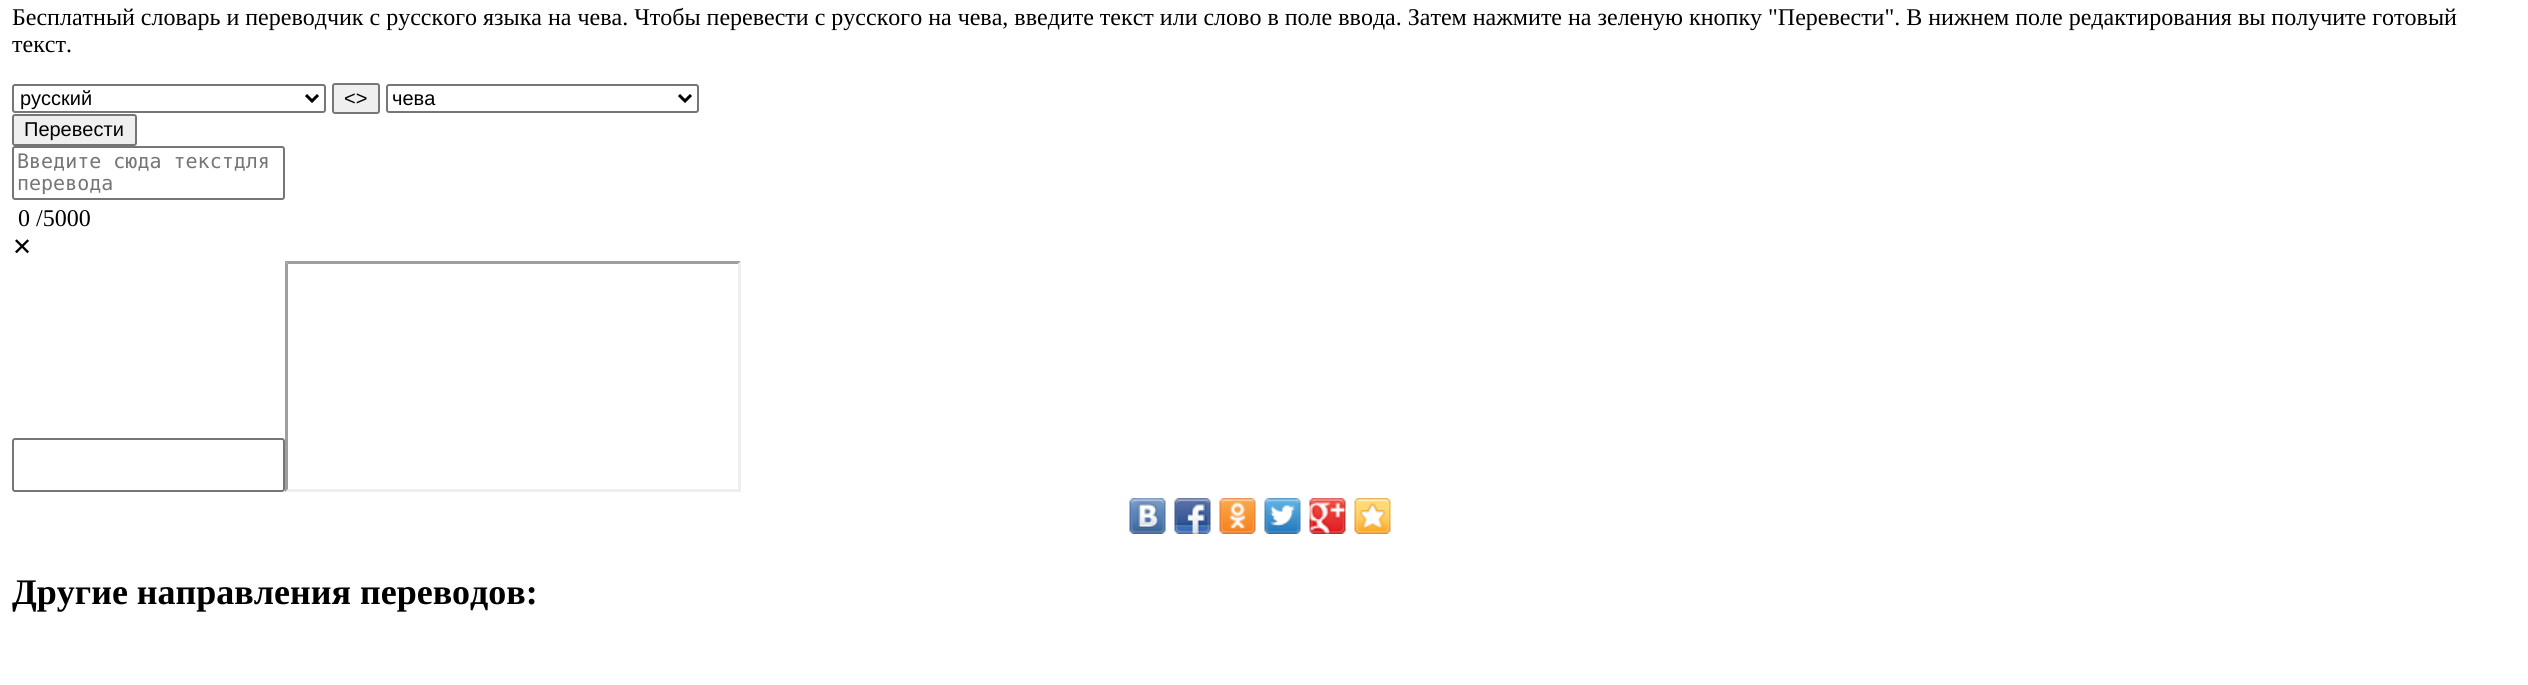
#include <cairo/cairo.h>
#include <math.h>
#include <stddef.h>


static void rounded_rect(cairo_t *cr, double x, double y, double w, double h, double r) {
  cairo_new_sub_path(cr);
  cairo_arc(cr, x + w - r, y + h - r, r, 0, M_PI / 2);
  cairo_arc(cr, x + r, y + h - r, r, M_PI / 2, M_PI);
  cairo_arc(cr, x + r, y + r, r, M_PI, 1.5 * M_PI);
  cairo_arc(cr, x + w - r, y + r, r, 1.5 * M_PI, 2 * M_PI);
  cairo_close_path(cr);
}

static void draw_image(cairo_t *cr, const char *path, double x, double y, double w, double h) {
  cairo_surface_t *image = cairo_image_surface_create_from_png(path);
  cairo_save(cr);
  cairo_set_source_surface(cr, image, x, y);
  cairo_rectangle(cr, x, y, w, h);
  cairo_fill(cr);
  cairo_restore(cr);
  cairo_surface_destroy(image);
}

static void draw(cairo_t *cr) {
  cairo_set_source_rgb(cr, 1, 1, 1);
  cairo_paint(cr);
  rounded_rect(cr, 13, 85, 312, 27, 2);
  cairo_set_source_rgb(cr, 118 / 255.0, 118 / 255.0, 118 / 255.0);
  cairo_stroke(cr);
  cairo_new_path(cr);
  cairo_move_to(cr, 306, 95);
  cairo_line_to(cr, 312, 101);
  cairo_line_to(cr, 318, 95);
  cairo_set_source_rgb(cr, 0, 0, 0);
  cairo_set_line_width(cr, 3);
  cairo_stroke(cr);
  cairo_set_source_rgb(cr, 239 / 255.0, 239 / 255.0, 239 / 255.0);
  rounded_rect(cr, 333, 84, 46, 29, 2);
  cairo_fill_preserve(cr);
  cairo_set_source_rgb(cr, 118 / 255.0, 118 / 255.0, 118 / 255.0);
  cairo_set_line_width(cr, 2);
  cairo_stroke(cr);
  rounded_rect(cr, 387, 85, 311, 27, 2);
  cairo_stroke(cr);
  cairo_new_path(cr);
  cairo_move_to(cr, 679, 95);
  cairo_line_to(cr, 685, 101);
  cairo_line_to(cr, 691, 95);
  cairo_set_source_rgb(cr, 0, 0, 0);
  cairo_set_line_width(cr, 3);
  cairo_stroke(cr);
  cairo_set_source_rgb(cr, 239 / 255.0, 239 / 255.0, 239 / 255.0);
  rounded_rect(cr, 13, 115, 123, 30, 2);
  cairo_fill_preserve(cr);
  cairo_set_source_rgb(cr, 118 / 255.0, 118 / 255.0, 118 / 255.0);
  cairo_set_line_width(cr, 2);
  cairo_stroke(cr);
  rounded_rect(cr, 13, 147, 271, 52, 2);
  cairo_stroke(cr);
  cairo_set_source_rgb(cr, 159 / 255.0, 159 / 255.0, 159 / 255.0);
  cairo_new_path(cr);
  cairo_move_to(cr, 285, 261);
  cairo_line_to(cr, 741, 261);
  cairo_line_to(cr, 738, 264);
  cairo_line_to(cr, 288, 264);
  cairo_close_path(cr);
  cairo_fill(cr);
  rounded_rect(cr, 13, 439, 271, 52, 2);
  cairo_set_source_rgb(cr, 118 / 255.0, 118 / 255.0, 118 / 255.0);
  cairo_stroke(cr);
  cairo_set_source_rgb(cr, 238 / 255.0, 238 / 255.0, 238 / 255.0);
  cairo_new_path(cr);
  cairo_move_to(cr, 741, 261);
  cairo_line_to(cr, 741, 492);
  cairo_line_to(cr, 738, 489);
  cairo_line_to(cr, 738, 264);
  cairo_close_path(cr);
  cairo_fill(cr);
  cairo_new_path(cr);
  cairo_move_to(cr, 741, 492);
  cairo_line_to(cr, 285, 492);
  cairo_line_to(cr, 288, 489);
  cairo_line_to(cr, 738, 489);
  cairo_close_path(cr);
  cairo_fill(cr);
  cairo_set_source_rgb(cr, 159 / 255.0, 159 / 255.0, 159 / 255.0);
  cairo_new_path(cr);
  cairo_move_to(cr, 285, 492);
  cairo_line_to(cr, 285, 261);
  cairo_line_to(cr, 288, 264);
  cairo_line_to(cr, 288, 489);
  cairo_close_path(cr);
  cairo_fill(cr);
  draw_image(cr, "images/1.png", 1129, 498, 37, 36);
  draw_image(cr, "images/2.png", 1174, 498, 37, 36);
  draw_image(cr, "images/3.png", 1219, 498, 37, 36);
  draw_image(cr, "images/4.png", 1264, 498, 37, 36);
  draw_image(cr, "images/5.png", 1309, 498, 37, 36);
  draw_image(cr, "images/6.png", 1354, 498, 37, 36);
  cairo_select_font_face(cr, "Liberation Serif", CAIRO_FONT_SLANT_NORMAL, CAIRO_FONT_WEIGHT_NORMAL);
  cairo_set_font_size(cr, 24);
  cairo_set_source_rgb(cr, 0, 0, 0);
  cairo_move_to(cr, 12, 25);
  cairo_show_text(cr, "Бесплатный словарь и переводчик с русского языка на чева. Чтобы перевести с русского на чева, введите текст или слово в поле ввода. Затем нажмите на зеленую кнопку \"Перевести\". В нижнем поле редактирования вы получите готовый");
  cairo_move_to(cr, 12, 52);
  cairo_show_text(cr, "текст.");
  cairo_select_font_face(cr, "Liberation Sans", CAIRO_FONT_SLANT_NORMAL, CAIRO_FONT_WEIGHT_NORMAL);
  cairo_set_font_size(cr, 20);
  cairo_move_to(cr, 20, 105);
  cairo_show_text(cr, "русский");
  cairo_move_to(cr, 344, 105);
  cairo_show_text(cr, "<>");
  cairo_move_to(cr, 392, 105);
  cairo_show_text(cr, "чева");
  cairo_move_to(cr, 24, 136);
  cairo_show_text(cr, "Перевести");
  cairo_select_font_face(cr, "DejaVu Sans Mono", CAIRO_FONT_SLANT_NORMAL, CAIRO_FONT_WEIGHT_NORMAL);
  cairo_set_source_rgb(cr, 117 / 255.0, 117 / 255.0, 117 / 255.0);
  cairo_move_to(cr, 17, 168);
  cairo_show_text(cr, "Введите сюда текстдля");
  cairo_move_to(cr, 17, 190);
  cairo_show_text(cr, "перевода");
  cairo_select_font_face(cr, "Liberation Serif", CAIRO_FONT_SLANT_NORMAL, CAIRO_FONT_WEIGHT_NORMAL);
  cairo_set_font_size(cr, 24);
  cairo_set_source_rgb(cr, 0, 0, 0);
  cairo_move_to(cr, 18, 226);
  cairo_show_text(cr, "0 /5000");
  cairo_select_font_face(cr, "DejaVu Sans", CAIRO_FONT_SLANT_NORMAL, CAIRO_FONT_WEIGHT_NORMAL);
  cairo_move_to(cr, 12, 255);
  cairo_show_text(cr, "✕");
  cairo_select_font_face(cr, "Liberation Serif", CAIRO_FONT_SLANT_NORMAL, CAIRO_FONT_WEIGHT_BOLD);
  cairo_set_font_size(cr, 36);
  cairo_move_to(cr, 12, 604);
  cairo_show_text(cr, "Другие направления переводов:");
}

int main(void) {
  cairo_surface_t *surface = cairo_image_surface_create(CAIRO_FORMAT_RGB24, 2528, 685);
  cairo_t *cr = cairo_create(surface);
  cairo_font_options_t *options = cairo_font_options_create();
  cairo_font_options_set_hint_metrics(options, CAIRO_HINT_METRICS_OFF);
  cairo_font_options_set_hint_style(options, CAIRO_HINT_STYLE_NONE);
  cairo_set_font_options(cr, options);
  cairo_set_miter_limit(cr, 4);
  draw(cr);
  cairo_surface_write_to_png(surface, "out.png");
  cairo_font_options_destroy(options);
  cairo_destroy(cr);
  cairo_surface_destroy(surface);
  return 0;
}
